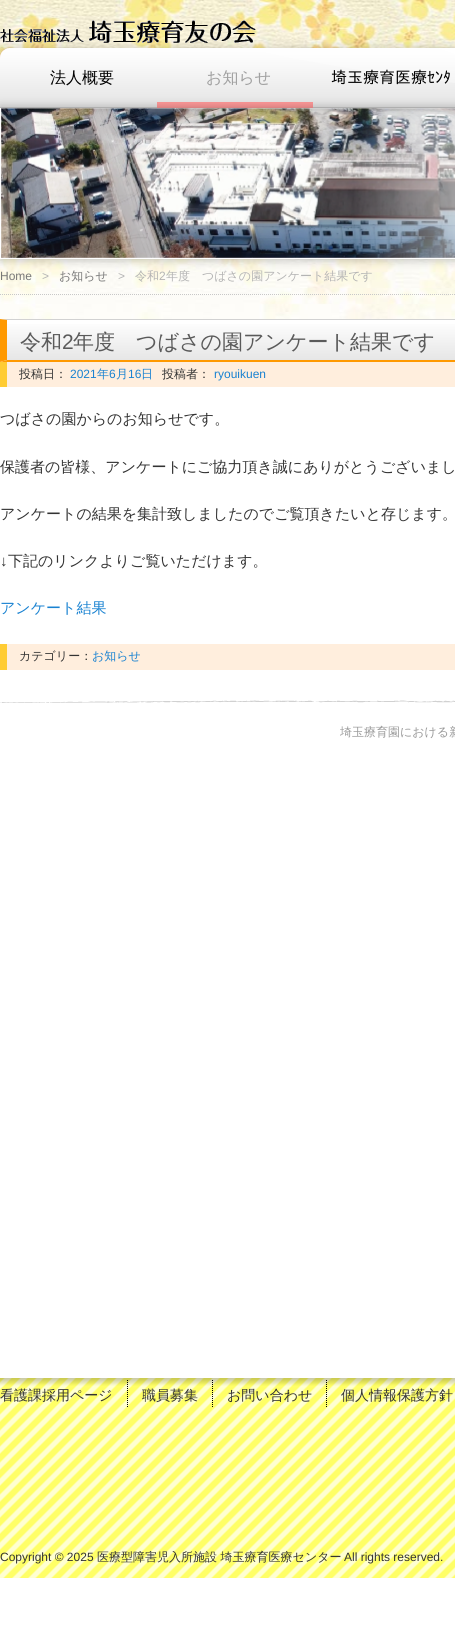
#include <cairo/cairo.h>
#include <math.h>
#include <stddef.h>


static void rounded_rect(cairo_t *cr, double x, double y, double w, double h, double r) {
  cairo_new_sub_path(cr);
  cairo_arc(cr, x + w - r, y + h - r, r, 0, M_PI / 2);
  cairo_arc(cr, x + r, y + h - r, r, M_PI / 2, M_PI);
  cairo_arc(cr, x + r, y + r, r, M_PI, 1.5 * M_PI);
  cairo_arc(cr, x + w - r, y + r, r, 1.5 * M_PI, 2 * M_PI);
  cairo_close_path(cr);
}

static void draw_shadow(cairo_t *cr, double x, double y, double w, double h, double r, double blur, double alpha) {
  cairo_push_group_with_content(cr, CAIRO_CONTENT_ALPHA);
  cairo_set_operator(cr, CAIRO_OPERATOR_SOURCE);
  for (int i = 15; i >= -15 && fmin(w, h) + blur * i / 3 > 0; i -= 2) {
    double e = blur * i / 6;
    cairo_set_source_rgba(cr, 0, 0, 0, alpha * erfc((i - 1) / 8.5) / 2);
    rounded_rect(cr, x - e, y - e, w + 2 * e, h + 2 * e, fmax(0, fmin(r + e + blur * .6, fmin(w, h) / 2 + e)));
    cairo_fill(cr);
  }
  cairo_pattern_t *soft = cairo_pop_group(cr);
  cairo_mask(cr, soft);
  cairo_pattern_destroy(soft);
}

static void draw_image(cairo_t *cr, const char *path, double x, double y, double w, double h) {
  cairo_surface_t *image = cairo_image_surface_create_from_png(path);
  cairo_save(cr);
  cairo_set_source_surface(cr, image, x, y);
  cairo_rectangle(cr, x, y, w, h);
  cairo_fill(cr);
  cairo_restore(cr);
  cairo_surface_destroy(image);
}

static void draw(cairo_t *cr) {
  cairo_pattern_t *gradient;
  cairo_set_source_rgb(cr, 1, 1, 1);
  cairo_paint(cr);
  draw_image(cr, "images/1.png", 0, 0, 455, 320);
  draw_image(cr, "images/2.png", 0, 1378, 455, 200);
  draw_image(cr, "images/5.png", 1, 108, 454, 150);
  cairo_set_source_rgb(cr, 0, 0, 0);
  draw_shadow(cr, 0, 48, 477, 60, 7, 5, 0.2);
  draw_image(cr, "images/3.png", 0, 20, 256, 23);
  draw_image(cr, "images/4.png", 0, 48, 455, 60);
  cairo_set_source_rgb(cr, 1, 153 / 255.0, 153 / 255.0);
  cairo_rectangle(cr, 157, 102, 156, 6);
  cairo_fill(cr);
  cairo_save(cr);
  cairo_set_fill_rule(cr, CAIRO_FILL_RULE_EVEN_ODD);
  cairo_new_path(cr);
  cairo_move_to(cr, 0, 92);
  cairo_line_to(cr, 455, 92);
  cairo_line_to(cr, 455, 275);
  cairo_line_to(cr, 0, 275);
  cairo_close_path(cr);
  cairo_move_to(cr, 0, 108);
  cairo_line_to(cr, 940, 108);
  cairo_line_to(cr, 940, 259);
  cairo_line_to(cr, 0, 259);
  cairo_close_path(cr);
  cairo_clip(cr);
  cairo_set_source_rgb(cr, 0, 0, 0);
  draw_shadow(cr, 0, 108, 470, 151, 0, 5, 0.3);
  cairo_restore(cr);
  cairo_set_source_rgb(cr, 1, 1, 1);
  cairo_rectangle(cr, 0, 258, 455, 1);
  cairo_fill(cr);
  cairo_rectangle(cr, 0, 108, 1, 151);
  cairo_fill(cr);
  cairo_new_path(cr);
  cairo_move_to(cr, 0, 294.5);
  cairo_line_to(cr, 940, 294.5);
  cairo_set_source_rgb(cr, 200 / 255.0, 200 / 255.0, 200 / 255.0);
  cairo_set_line_width(cr, 1);
  cairo_set_dash(cr, (double[]){1, 1}, 2, 0);
  cairo_stroke(cr);
  draw_image(cr, "images/6.png", 0, 700, 455, 3);
  gradient = cairo_pattern_create_linear(338, 320, 338, 360);
  cairo_pattern_add_color_stop_rgba(gradient, 0, 1, 1, 1, 1);
  cairo_pattern_add_color_stop_rgba(gradient, 1, 230 / 255.0, 230 / 255.0, 230 / 255.0, 1);
  cairo_set_source(cr, gradient);
  cairo_pattern_destroy(gradient);
  cairo_rectangle(cr, 7, 324, 448, 36);
  cairo_fill(cr);
  cairo_set_source_rgb(cr, 210 / 255.0, 210 / 255.0, 210 / 255.0);
  cairo_new_path(cr);
  cairo_move_to(cr, 0, 319);
  cairo_line_to(cr, 7, 320);
  cairo_line_to(cr, 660, 320);
  cairo_curve_to(cr, 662, 320, 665, 321, 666, 323);
  cairo_line_to(cr, 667, 322);
  cairo_curve_to(cr, 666, 320, 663, 319, 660, 319);
  cairo_close_path(cr);
  cairo_fill(cr);
  cairo_set_source_rgb(cr, 1, 153 / 255.0, 0);
  cairo_new_path(cr);
  cairo_move_to(cr, 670, 362);
  cairo_line_to(cr, 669, 360);
  cairo_line_to(cr, 7, 360);
  cairo_line_to(cr, 0, 362);
  cairo_close_path(cr);
  cairo_fill(cr);
  cairo_new_path(cr);
  cairo_move_to(cr, 0, 319);
  cairo_line_to(cr, 0, 362);
  cairo_line_to(cr, 7, 360);
  cairo_line_to(cr, 7, 320);
  cairo_close_path(cr);
  cairo_fill(cr);
  cairo_set_source_rgb(cr, 1, 238 / 255.0, 221 / 255.0);
  cairo_rectangle(cr, 7, 362, 448, 25);
  cairo_fill(cr);
  cairo_set_source_rgb(cr, 1, 204 / 255.0, 51 / 255.0);
  cairo_rectangle(cr, 0, 362, 7, 25);
  cairo_fill(cr);
  cairo_set_source_rgb(cr, 1, 238 / 255.0, 221 / 255.0);
  cairo_rectangle(cr, 7, 644, 448, 26);
  cairo_fill(cr);
  cairo_set_source_rgb(cr, 1, 204 / 255.0, 51 / 255.0);
  cairo_rectangle(cr, 0, 644, 7, 26);
  cairo_fill(cr);
  cairo_new_path(cr);
  cairo_move_to(cr, 127.5, 1380);
  cairo_line_to(cr, 127.5, 1408);
  cairo_set_source_rgb(cr, 0, 0, 0);
  cairo_stroke(cr);
  cairo_new_path(cr);
  cairo_move_to(cr, 212.5, 1380);
  cairo_line_to(cr, 212.5, 1408);
  cairo_stroke(cr);
  cairo_new_path(cr);
  cairo_move_to(cr, 326.5, 1380);
  cairo_line_to(cr, 326.5, 1408);
  cairo_stroke(cr);
  cairo_select_font_face(cr, "WenQuanYi Zen Hei Medium", CAIRO_FONT_SLANT_NORMAL, CAIRO_FONT_WEIGHT_NORMAL);
  cairo_set_font_size(cr, 16);
  cairo_move_to(cr, 50, 83);
  cairo_show_text(cr, "法人概要");
  cairo_set_source_rgb(cr, 160 / 255.0, 160 / 255.0, 160 / 255.0);
  cairo_move_to(cr, 206, 83);
  cairo_show_text(cr, "お知らせ");
  cairo_select_font_face(cr, "IPAPGothic", CAIRO_FONT_SLANT_NORMAL, CAIRO_FONT_WEIGHT_NORMAL);
  cairo_set_source_rgb(cr, 0, 0, 0);
  cairo_move_to(cr, 331, 83);
  cairo_show_text(cr, "埼玉療育医療ｾﾝﾀ");
  cairo_select_font_face(cr, "Liberation Sans", CAIRO_FONT_SLANT_NORMAL, CAIRO_FONT_WEIGHT_NORMAL);
  cairo_set_font_size(cr, 12);
  cairo_set_source_rgb(cr, 120 / 255.0, 120 / 255.0, 120 / 255.0);
  cairo_move_to(cr, 0, 280);
  cairo_show_text(cr, "Home");
  cairo_set_source_rgb(cr, 180 / 255.0, 180 / 255.0, 180 / 255.0);
  cairo_move_to(cr, 42, 280);
  cairo_show_text(cr, ">");
  cairo_select_font_face(cr, "WenQuanYi Zen Hei Medium", CAIRO_FONT_SLANT_NORMAL, CAIRO_FONT_WEIGHT_NORMAL);
  cairo_set_source_rgb(cr, 120 / 255.0, 120 / 255.0, 120 / 255.0);
  cairo_move_to(cr, 59, 280);
  cairo_show_text(cr, "お知らせ");
  cairo_select_font_face(cr, "Liberation Sans", CAIRO_FONT_SLANT_NORMAL, CAIRO_FONT_WEIGHT_NORMAL);
  cairo_set_source_rgb(cr, 180 / 255.0, 180 / 255.0, 180 / 255.0);
  cairo_move_to(cr, 118, 280);
  cairo_show_text(cr, ">");
  cairo_select_font_face(cr, "WenQuanYi Zen Hei Medium", CAIRO_FONT_SLANT_NORMAL, CAIRO_FONT_WEIGHT_NORMAL);
  cairo_move_to(cr, 135, 280);
  cairo_show_text(cr, "令和");
  cairo_select_font_face(cr, "Liberation Sans", CAIRO_FONT_SLANT_NORMAL, CAIRO_FONT_WEIGHT_NORMAL);
  cairo_move_to(cr, 159, 280);
  cairo_show_text(cr, "2");
  cairo_select_font_face(cr, "WenQuanYi Zen Hei Medium", CAIRO_FONT_SLANT_NORMAL, CAIRO_FONT_WEIGHT_NORMAL);
  cairo_move_to(cr, 166, 280);
  cairo_show_text(cr, "年度　つばさの園アンケート結果です");
  cairo_set_font_size(cr, 21);
  cairo_set_source_rgb(cr, 90 / 255.0, 90 / 255.0, 90 / 255.0);
  cairo_move_to(cr, 20, 349);
  cairo_show_text(cr, "令和");
  cairo_select_font_face(cr, "Liberation Sans", CAIRO_FONT_SLANT_NORMAL, CAIRO_FONT_WEIGHT_NORMAL);
  cairo_move_to(cr, 62, 349);
  cairo_show_text(cr, "2");
  cairo_select_font_face(cr, "WenQuanYi Zen Hei Medium", CAIRO_FONT_SLANT_NORMAL, CAIRO_FONT_WEIGHT_NORMAL);
  cairo_move_to(cr, 73, 349);
  cairo_show_text(cr, "年度　つばさの園アンケート結果です");
  cairo_set_font_size(cr, 12);
  cairo_set_source_rgb(cr, 51 / 255.0, 51 / 255.0, 51 / 255.0);
  cairo_move_to(cr, 19, 378);
  cairo_show_text(cr, "投稿日：");
  cairo_select_font_face(cr, "Liberation Sans", CAIRO_FONT_SLANT_NORMAL, CAIRO_FONT_WEIGHT_NORMAL);
  cairo_set_source_rgb(cr, 25 / 255.0, 130 / 255.0, 209 / 255.0);
  cairo_move_to(cr, 70, 378);
  cairo_show_text(cr, "2021");
  cairo_select_font_face(cr, "WenQuanYi Zen Hei Medium", CAIRO_FONT_SLANT_NORMAL, CAIRO_FONT_WEIGHT_NORMAL);
  cairo_move_to(cr, 97, 378);
  cairo_show_text(cr, "年");
  cairo_select_font_face(cr, "Liberation Sans", CAIRO_FONT_SLANT_NORMAL, CAIRO_FONT_WEIGHT_NORMAL);
  cairo_move_to(cr, 109, 378);
  cairo_show_text(cr, "6");
  cairo_select_font_face(cr, "WenQuanYi Zen Hei Medium", CAIRO_FONT_SLANT_NORMAL, CAIRO_FONT_WEIGHT_NORMAL);
  cairo_move_to(cr, 116, 378);
  cairo_show_text(cr, "月");
  cairo_select_font_face(cr, "Liberation Sans", CAIRO_FONT_SLANT_NORMAL, CAIRO_FONT_WEIGHT_NORMAL);
  cairo_move_to(cr, 128, 378);
  cairo_show_text(cr, "16");
  cairo_select_font_face(cr, "WenQuanYi Zen Hei Medium", CAIRO_FONT_SLANT_NORMAL, CAIRO_FONT_WEIGHT_NORMAL);
  cairo_move_to(cr, 141, 378);
  cairo_show_text(cr, "日");
  cairo_set_source_rgb(cr, 51 / 255.0, 51 / 255.0, 51 / 255.0);
  cairo_move_to(cr, 162, 378);
  cairo_show_text(cr, "投稿者：");
  cairo_select_font_face(cr, "Liberation Sans", CAIRO_FONT_SLANT_NORMAL, CAIRO_FONT_WEIGHT_NORMAL);
  cairo_set_source_rgb(cr, 25 / 255.0, 130 / 255.0, 209 / 255.0);
  cairo_move_to(cr, 214, 378);
  cairo_show_text(cr, "ryouikuen");
  cairo_select_font_face(cr, "WenQuanYi Zen Hei Medium", CAIRO_FONT_SLANT_NORMAL, CAIRO_FONT_WEIGHT_NORMAL);
  cairo_set_font_size(cr, 15);
  cairo_set_source_rgb(cr, 51 / 255.0, 51 / 255.0, 51 / 255.0);
  cairo_move_to(cr, 0, 424);
  cairo_show_text(cr, "つばさの園からのお知らせです。");
  cairo_move_to(cr, 0, 472);
  cairo_show_text(cr, "保護者の皆様、アンケートにご協力頂き誠にありがとうございまし");
  cairo_move_to(cr, 0, 519);
  cairo_show_text(cr, "アンケートの結果を集計致しましたのでご覧頂きたいと存じます。");
  cairo_select_font_face(cr, "Liberation Sans", CAIRO_FONT_SLANT_NORMAL, CAIRO_FONT_WEIGHT_NORMAL);
  cairo_move_to(cr, 0, 566);
  cairo_show_text(cr, "↓");
  cairo_select_font_face(cr, "WenQuanYi Zen Hei Medium", CAIRO_FONT_SLANT_NORMAL, CAIRO_FONT_WEIGHT_NORMAL);
  cairo_move_to(cr, 8, 566);
  cairo_show_text(cr, "下記のリンクよりご覧いただけます。");
  cairo_set_source_rgb(cr, 25 / 255.0, 130 / 255.0, 209 / 255.0);
  cairo_move_to(cr, 0, 613);
  cairo_show_text(cr, "アンケート結果");
  cairo_set_font_size(cr, 12);
  cairo_set_source_rgb(cr, 51 / 255.0, 51 / 255.0, 51 / 255.0);
  cairo_move_to(cr, 19, 660);
  cairo_show_text(cr, "カテゴリー：");
  cairo_set_source_rgb(cr, 25 / 255.0, 130 / 255.0, 209 / 255.0);
  cairo_move_to(cr, 92, 660);
  cairo_show_text(cr, "お知らせ");
  cairo_set_source_rgb(cr, 153 / 255.0, 153 / 255.0, 153 / 255.0);
  cairo_move_to(cr, 340, 736);
  cairo_show_text(cr, "埼玉療育園における新");
  cairo_set_font_size(cr, 14);
  cairo_set_source_rgb(cr, 51 / 255.0, 51 / 255.0, 51 / 255.0);
  cairo_move_to(cr, 0, 1400);
  cairo_show_text(cr, "看護課採用ページ");
  cairo_move_to(cr, 142, 1400);
  cairo_show_text(cr, "職員募集");
  cairo_move_to(cr, 227, 1400);
  cairo_show_text(cr, "お問い合わせ");
  cairo_move_to(cr, 341, 1400);
  cairo_show_text(cr, "個人情報保護方針");
  cairo_select_font_face(cr, "Liberation Sans", CAIRO_FONT_SLANT_NORMAL, CAIRO_FONT_WEIGHT_NORMAL);
  cairo_set_font_size(cr, 12);
  cairo_move_to(cr, 0, 1561);
  cairo_show_text(cr, "Copyright © 2025");
  cairo_select_font_face(cr, "WenQuanYi Zen Hei Medium", CAIRO_FONT_SLANT_NORMAL, CAIRO_FONT_WEIGHT_NORMAL);
  cairo_move_to(cr, 97, 1561);
  cairo_show_text(cr, "医療型障害児入所施設 埼玉療育医療センター");
  cairo_select_font_face(cr, "Liberation Sans", CAIRO_FONT_SLANT_NORMAL, CAIRO_FONT_WEIGHT_NORMAL);
  cairo_move_to(cr, 344, 1561);
  cairo_show_text(cr, "All rights reserved.");
}

int main(void) {
  cairo_surface_t *surface = cairo_image_surface_create(CAIRO_FORMAT_RGB24, 455, 1632);
  cairo_t *cr = cairo_create(surface);
  cairo_font_options_t *options = cairo_font_options_create();
  cairo_font_options_set_hint_metrics(options, CAIRO_HINT_METRICS_OFF);
  cairo_font_options_set_hint_style(options, CAIRO_HINT_STYLE_NONE);
  cairo_set_font_options(cr, options);
  cairo_set_miter_limit(cr, 4);
  draw(cr);
  cairo_surface_write_to_png(surface, "out.png");
  cairo_font_options_destroy(options);
  cairo_destroy(cr);
  cairo_surface_destroy(surface);
  return 0;
}
